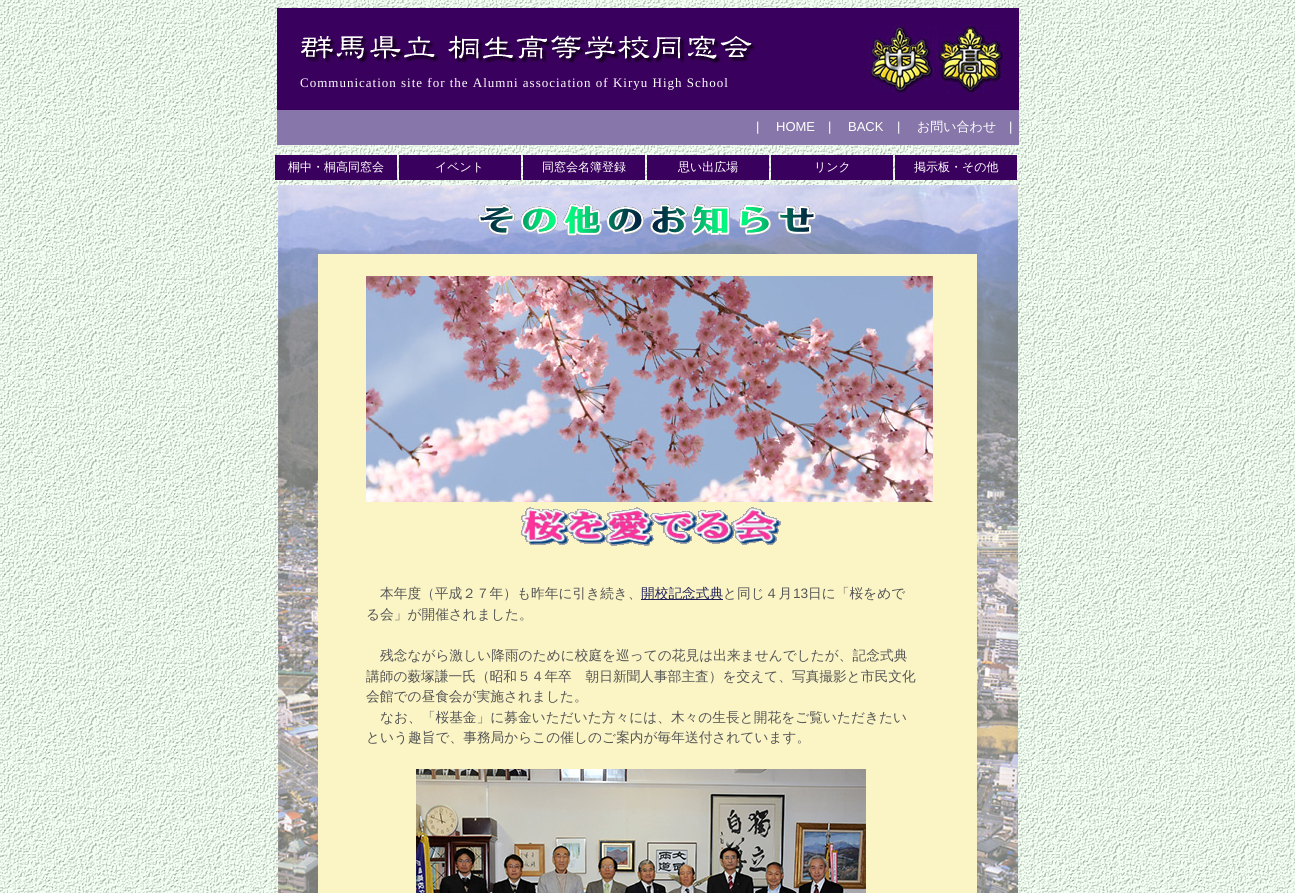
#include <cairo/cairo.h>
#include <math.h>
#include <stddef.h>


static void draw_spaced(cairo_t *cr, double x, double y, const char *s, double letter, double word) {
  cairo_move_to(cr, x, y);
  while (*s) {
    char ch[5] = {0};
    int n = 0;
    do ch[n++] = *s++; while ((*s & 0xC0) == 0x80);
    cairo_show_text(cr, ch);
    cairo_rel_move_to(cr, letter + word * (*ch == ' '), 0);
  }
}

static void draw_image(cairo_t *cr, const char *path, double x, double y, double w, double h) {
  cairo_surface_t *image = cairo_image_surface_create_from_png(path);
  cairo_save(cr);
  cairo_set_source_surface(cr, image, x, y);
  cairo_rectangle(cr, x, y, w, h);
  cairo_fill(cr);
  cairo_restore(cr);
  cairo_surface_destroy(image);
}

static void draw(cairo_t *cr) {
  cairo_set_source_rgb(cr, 1, 1, 1);
  cairo_paint(cr);
  draw_image(cr, "images/1.png", 0, 0, 1295, 893);
  cairo_set_source_rgb(cr, 58 / 255.0, 0, 94 / 255.0);
  cairo_rectangle(cr, 277, 8, 742, 102);
  cairo_fill(cr);
  draw_image(cr, "images/2.png", 301, 35, 455, 29);
  draw_image(cr, "images/3.png", 868, 25, 136, 68);
  cairo_set_source_rgb(cr, 134 / 255.0, 118 / 255.0, 169 / 255.0);
  cairo_rectangle(cr, 277, 110, 742, 35);
  cairo_fill(cr);
  cairo_set_source_rgb(cr, 58 / 255.0, 0, 94 / 255.0);
  cairo_rectangle(cr, 275, 155, 122, 25);
  cairo_fill(cr);
  cairo_rectangle(cr, 399, 155, 122, 25);
  cairo_fill(cr);
  cairo_rectangle(cr, 523, 155, 122, 25);
  cairo_fill(cr);
  cairo_rectangle(cr, 647, 155, 122, 25);
  cairo_fill(cr);
  cairo_rectangle(cr, 771, 155, 122, 25);
  cairo_fill(cr);
  cairo_rectangle(cr, 895, 155, 122, 25);
  cairo_fill(cr);
  draw_image(cr, "images/4.png", 278, 185, 740, 708);
  draw_image(cr, "images/5.png", 478, 204, 338, 32);
  cairo_set_source_rgb(cr, 251 / 255.0, 245 / 255.0, 198 / 255.0);
  cairo_rectangle(cr, 318, 254, 47, 639);
  cairo_fill(cr);
  cairo_rectangle(cr, 365, 254, 569, 639);
  cairo_fill(cr);
  draw_image(cr, "images/6.png", 366, 276, 567, 226);
  draw_image(cr, "images/7.png", 521, 507, 260, 39);
  cairo_rectangle(cr, 934, 254, 43, 639);
  cairo_fill(cr);
  cairo_set_source_rgb(cr, 33 / 255.0, 33 / 255.0, 88 / 255.0);
  cairo_rectangle(cr, 641, 599, 82, 1);
  cairo_fill(cr);
  draw_image(cr, "images/8.png", 416, 769, 450, 124);
  cairo_select_font_face(cr, "Liberation Serif", CAIRO_FONT_SLANT_NORMAL, CAIRO_FONT_WEIGHT_NORMAL);
  cairo_set_font_size(cr, 13);
  cairo_set_source_rgb(cr, 1, 1, 1);
  draw_spaced(cr, 300, 87, "Communication site for the Alumni association of Kiryu High School", 1, 0);
  cairo_select_font_face(cr, "Liberation Sans", CAIRO_FONT_SLANT_NORMAL, CAIRO_FONT_WEIGHT_NORMAL);
  cairo_move_to(cr, 756, 131);
  cairo_show_text(cr, "|");
  cairo_move_to(cr, 776, 131);
  cairo_show_text(cr, "HOME");
  cairo_move_to(cr, 828, 131);
  cairo_show_text(cr, "|");
  cairo_move_to(cr, 848, 131);
  cairo_show_text(cr, "BACK");
  cairo_move_to(cr, 897, 131);
  cairo_show_text(cr, "|");
  cairo_select_font_face(cr, "WenQuanYi Zen Hei Medium", CAIRO_FONT_SLANT_NORMAL, CAIRO_FONT_WEIGHT_NORMAL);
  cairo_move_to(cr, 917, 131);
  cairo_show_text(cr, "お問い合わせ");
  cairo_select_font_face(cr, "Liberation Sans", CAIRO_FONT_SLANT_NORMAL, CAIRO_FONT_WEIGHT_NORMAL);
  cairo_move_to(cr, 1009, 131);
  cairo_show_text(cr, "|");
  cairo_select_font_face(cr, "WenQuanYi Zen Hei Medium", CAIRO_FONT_SLANT_NORMAL, CAIRO_FONT_WEIGHT_NORMAL);
  cairo_set_font_size(cr, 12);
  cairo_move_to(cr, 288, 171);
  cairo_show_text(cr, "桐中・桐高同窓会");
  cairo_move_to(cr, 435, 171);
  cairo_show_text(cr, "イベント");
  cairo_move_to(cr, 542, 171);
  cairo_show_text(cr, "同窓会名簿登録");
  cairo_move_to(cr, 678, 171);
  cairo_show_text(cr, "思い出広場");
  cairo_move_to(cr, 814, 171);
  cairo_show_text(cr, "リンク");
  cairo_move_to(cr, 914, 171);
  cairo_show_text(cr, "掲示板・その他");
  cairo_set_font_size(cr, 13.7);
  cairo_set_source_rgb(cr, 85 / 255.0, 85 / 255.0, 85 / 255.0);
  cairo_move_to(cr, 380, 598);
  cairo_show_text(cr, "本年度（平成２７年）も昨年に引き続き、");
  cairo_set_source_rgb(cr, 33 / 255.0, 33 / 255.0, 88 / 255.0);
  cairo_move_to(cr, 641, 598);
  cairo_show_text(cr, "開校記念式典");
  cairo_set_source_rgb(cr, 85 / 255.0, 85 / 255.0, 85 / 255.0);
  cairo_move_to(cr, 723, 598);
  cairo_show_text(cr, "と同じ４月");
  cairo_select_font_face(cr, "Liberation Sans", CAIRO_FONT_SLANT_NORMAL, CAIRO_FONT_WEIGHT_NORMAL);
  cairo_move_to(cr, 793, 598);
  cairo_show_text(cr, "13");
  cairo_select_font_face(cr, "WenQuanYi Zen Hei Medium", CAIRO_FONT_SLANT_NORMAL, CAIRO_FONT_WEIGHT_NORMAL);
  cairo_move_to(cr, 808, 598);
  cairo_show_text(cr, "日に「桜をめで");
  cairo_move_to(cr, 366, 619);
  cairo_show_text(cr, "る会」が開催されました。");
  cairo_move_to(cr, 380, 660);
  cairo_show_text(cr, "残念ながら激しい降雨のために校庭を巡っての花見は出来ませんでしたが、記念式典");
  cairo_move_to(cr, 366, 681);
  cairo_show_text(cr, "講師の薮塚謙一氏（昭和５４年卒　朝日新聞人事部主査）を交えて、写真撮影と市民文化");
  cairo_move_to(cr, 366, 701);
  cairo_show_text(cr, "会館での昼食会が実施されました。");
  cairo_move_to(cr, 380, 722);
  cairo_show_text(cr, "なお、「桜基金」に募金いただいた方々には、木々の生長と開花をご覧いただきたい");
  cairo_move_to(cr, 366, 742);
  cairo_show_text(cr, "という趣旨で、事務局からこの催しのご案内が毎年送付されています。");
}

int main(void) {
  cairo_surface_t *surface = cairo_image_surface_create(CAIRO_FORMAT_RGB24, 1295, 893);
  cairo_t *cr = cairo_create(surface);
  cairo_font_options_t *options = cairo_font_options_create();
  cairo_font_options_set_hint_metrics(options, CAIRO_HINT_METRICS_OFF);
  cairo_font_options_set_hint_style(options, CAIRO_HINT_STYLE_NONE);
  cairo_set_font_options(cr, options);
  cairo_set_miter_limit(cr, 4);
  draw(cr);
  cairo_surface_write_to_png(surface, "out.png");
  cairo_font_options_destroy(options);
  cairo_destroy(cr);
  cairo_surface_destroy(surface);
  return 0;
}
